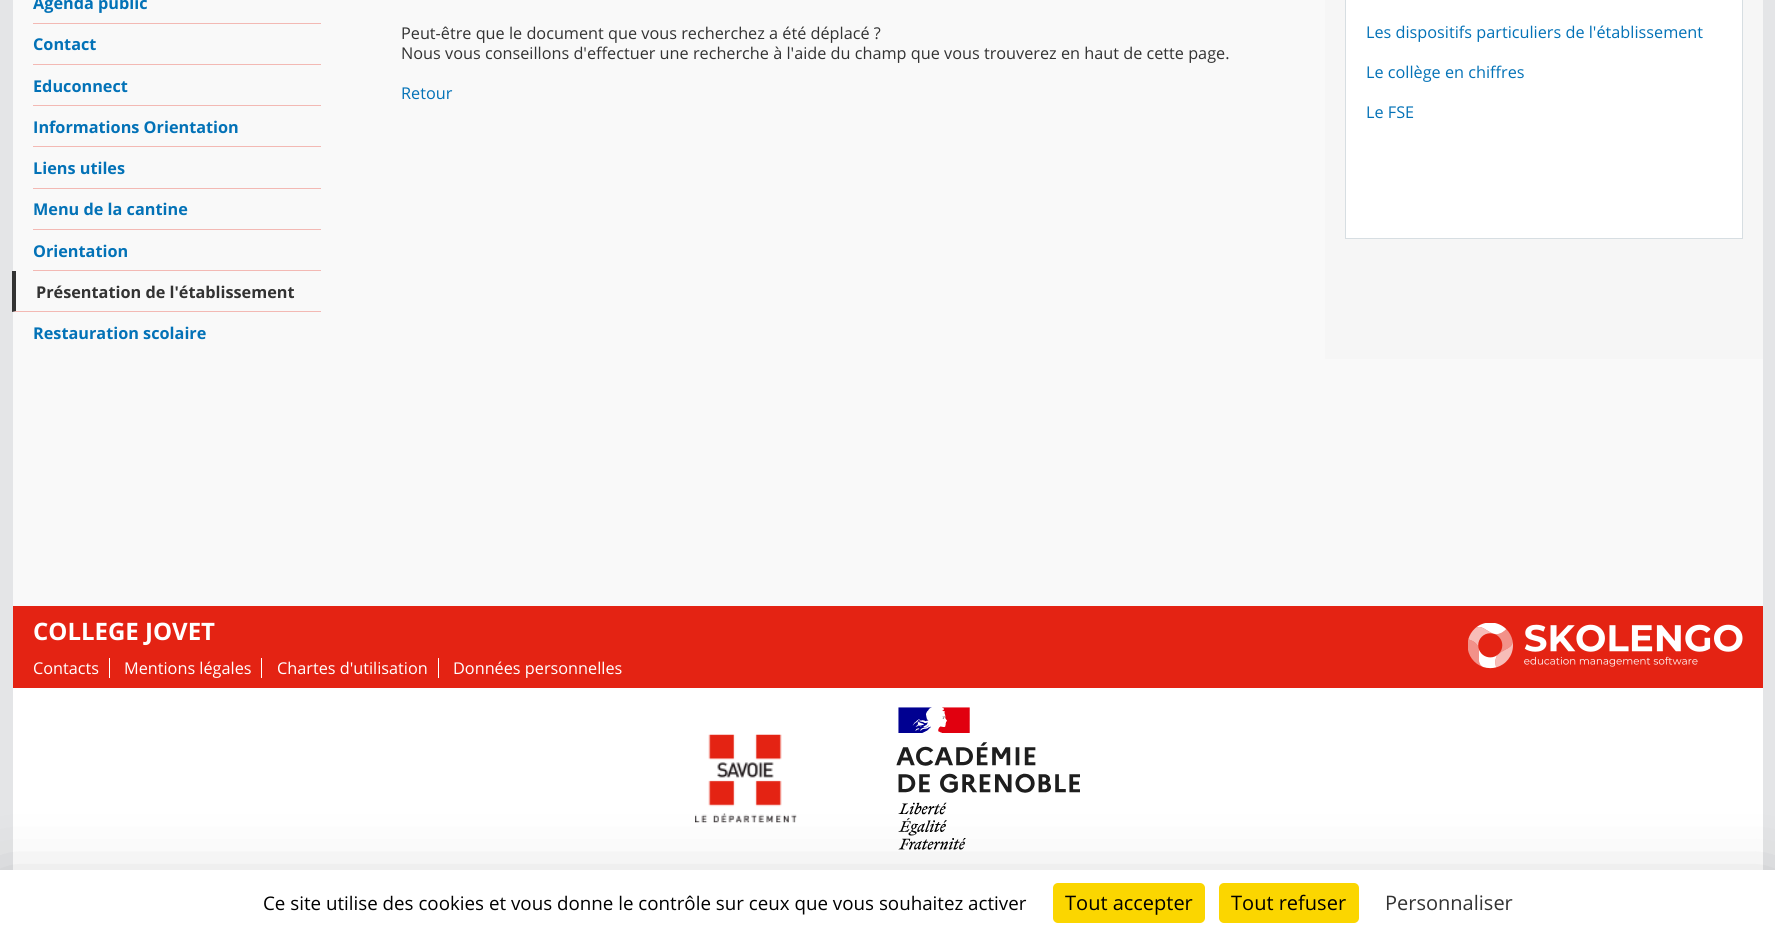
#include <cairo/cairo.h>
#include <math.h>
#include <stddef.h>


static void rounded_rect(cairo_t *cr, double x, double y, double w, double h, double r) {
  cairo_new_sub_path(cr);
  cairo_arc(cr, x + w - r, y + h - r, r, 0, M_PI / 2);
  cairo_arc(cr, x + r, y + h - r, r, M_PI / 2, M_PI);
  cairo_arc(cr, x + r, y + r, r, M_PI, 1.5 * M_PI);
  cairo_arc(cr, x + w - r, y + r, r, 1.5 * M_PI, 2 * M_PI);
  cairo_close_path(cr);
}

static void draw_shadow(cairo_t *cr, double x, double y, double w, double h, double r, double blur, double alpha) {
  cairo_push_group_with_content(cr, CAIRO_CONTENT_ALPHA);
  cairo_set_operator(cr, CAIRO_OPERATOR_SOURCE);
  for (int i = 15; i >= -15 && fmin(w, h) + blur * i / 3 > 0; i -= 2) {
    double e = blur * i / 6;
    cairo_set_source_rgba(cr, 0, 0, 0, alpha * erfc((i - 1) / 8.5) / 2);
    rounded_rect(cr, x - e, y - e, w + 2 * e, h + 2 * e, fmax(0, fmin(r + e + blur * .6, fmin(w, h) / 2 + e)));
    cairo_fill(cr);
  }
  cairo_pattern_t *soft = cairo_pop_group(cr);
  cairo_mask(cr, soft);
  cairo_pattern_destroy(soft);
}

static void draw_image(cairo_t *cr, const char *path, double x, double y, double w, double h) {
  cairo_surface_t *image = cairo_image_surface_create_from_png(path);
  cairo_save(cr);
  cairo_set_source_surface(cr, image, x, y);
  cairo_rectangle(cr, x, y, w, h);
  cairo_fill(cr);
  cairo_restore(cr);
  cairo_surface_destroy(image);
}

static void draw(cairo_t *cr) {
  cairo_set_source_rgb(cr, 228 / 255.0, 229 / 255.0, 231 / 255.0);
  cairo_paint(cr);
  cairo_set_source_rgb(cr, 1, 1, 1);
  cairo_rectangle(cr, 13, 688, 1750, 182);
  cairo_fill(cr);
  cairo_set_source_rgb(cr, 249 / 255.0, 249 / 255.0, 249 / 255.0);
  cairo_rectangle(cr, 13, 0, 1750, 606);
  cairo_fill(cr);
  cairo_set_source_rgb(cr, 243 / 255.0, 185 / 255.0, 180 / 255.0);
  cairo_rectangle(cr, 33, 23, 288, 1);
  cairo_fill(cr);
  cairo_rectangle(cr, 33, 64, 288, 1);
  cairo_fill(cr);
  cairo_rectangle(cr, 33, 105, 288, 1);
  cairo_fill(cr);
  cairo_rectangle(cr, 33, 146, 288, 1);
  cairo_fill(cr);
  cairo_rectangle(cr, 33, 188, 288, 1);
  cairo_fill(cr);
  cairo_rectangle(cr, 33, 229, 288, 1);
  cairo_fill(cr);
  cairo_rectangle(cr, 33, 270, 288, 1);
  cairo_fill(cr);
  cairo_new_path(cr);
  cairo_move_to(cr, 321, 312);
  cairo_line_to(cr, 12, 312);
  cairo_line_to(cr, 16, 311);
  cairo_line_to(cr, 321, 311);
  cairo_close_path(cr);
  cairo_fill(cr);
  cairo_set_source_rgb(cr, 51 / 255.0, 51 / 255.0, 51 / 255.0);
  cairo_new_path(cr);
  cairo_move_to(cr, 12, 312);
  cairo_line_to(cr, 12, 271);
  cairo_line_to(cr, 16, 271);
  cairo_line_to(cr, 16, 311);
  cairo_close_path(cr);
  cairo_fill(cr);
  cairo_set_source_rgb(cr, 246 / 255.0, 246 / 255.0, 246 / 255.0);
  cairo_rectangle(cr, 1325, 0, 438, 359);
  cairo_fill(cr);
  cairo_set_source_rgb(cr, 1, 1, 1);
  cairo_rectangle(cr, 1345.5, -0.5, 397, 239);
  cairo_fill_preserve(cr);
  cairo_set_source_rgb(cr, 215 / 255.0, 222 / 255.0, 226 / 255.0);
  cairo_set_line_width(cr, 1);
  cairo_stroke(cr);
  cairo_set_source_rgb(cr, 228 / 255.0, 35 / 255.0, 19 / 255.0);
  cairo_rectangle(cr, 13, 606, 1750, 82);
  cairo_fill(cr);
  cairo_set_source_rgb(cr, 1, 1, 1);
  cairo_rectangle(cr, 109, 658, 1, 20);
  cairo_fill(cr);
  cairo_rectangle(cr, 261, 658, 1, 20);
  cairo_fill(cr);
  cairo_rectangle(cr, 438, 658, 1, 20);
  cairo_fill(cr);
  draw_image(cr, "images/1.png", 1468, 623, 275, 46);
  draw_image(cr, "images/2.png", 695, 734, 102, 89);
  draw_image(cr, "images/3.png", 896, 707, 184, 143);
  cairo_set_source_rgb(cr, 0, 0, 0);
  draw_shadow(cr, 0, 895, 1775, 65, 0, 37.5, 0.25);
  cairo_set_source_rgb(cr, 1, 1, 1);
  cairo_rectangle(cr, 0, 870, 1775, 65);
  cairo_fill(cr);
  cairo_set_source_rgb(cr, 251 / 255.0, 214 / 255.0, 0);
  rounded_rect(cr, 1053, 883, 152, 40, 5);
  cairo_fill(cr);
  rounded_rect(cr, 1219, 883, 140, 40, 5);
  cairo_fill(cr);
  cairo_select_font_face(cr, "Open Sans", CAIRO_FONT_SLANT_NORMAL, CAIRO_FONT_WEIGHT_BOLD);
  cairo_set_font_size(cr, 16.25);
  cairo_set_source_rgb(cr, 3 / 255.0, 114 / 255.0, 183 / 255.0);
  cairo_move_to(cr, 33, 9);
  cairo_show_text(cr, "Agenda public");
  cairo_move_to(cr, 33, 50);
  cairo_show_text(cr, "Contact");
  cairo_move_to(cr, 33, 92);
  cairo_show_text(cr, "Educonnect");
  cairo_move_to(cr, 33, 133);
  cairo_show_text(cr, "Informations Orientation");
  cairo_move_to(cr, 33, 174);
  cairo_show_text(cr, "Liens utiles");
  cairo_move_to(cr, 33, 215);
  cairo_show_text(cr, "Menu de la cantine");
  cairo_move_to(cr, 33, 257);
  cairo_show_text(cr, "Orientation");
  cairo_set_source_rgb(cr, 51 / 255.0, 51 / 255.0, 51 / 255.0);
  cairo_move_to(cr, 36, 298);
  cairo_show_text(cr, "Présentation de l'établissement");
  cairo_set_source_rgb(cr, 3 / 255.0, 114 / 255.0, 183 / 255.0);
  cairo_move_to(cr, 33, 339);
  cairo_show_text(cr, "Restauration scolaire");
  cairo_select_font_face(cr, "Open Sans", CAIRO_FONT_SLANT_NORMAL, CAIRO_FONT_WEIGHT_NORMAL);
  cairo_set_source_rgb(cr, 51 / 255.0, 51 / 255.0, 51 / 255.0);
  cairo_move_to(cr, 401, 39);
  cairo_show_text(cr, "Peut-être que le document que vous recherchez a été déplacé ?");
  cairo_move_to(cr, 401, 59);
  cairo_show_text(cr, "Nous vous conseillons d'effectuer une recherche à l'aide du champ que vous trouverez en haut de cette page.");
  cairo_set_source_rgb(cr, 3 / 255.0, 114 / 255.0, 183 / 255.0);
  cairo_move_to(cr, 401, 99);
  cairo_show_text(cr, "Retour");
  cairo_move_to(cr, 1366, 38);
  cairo_show_text(cr, "Les dispositifs particuliers de l'établissement");
  cairo_move_to(cr, 1366, 78);
  cairo_show_text(cr, "Le collège en chiffres");
  cairo_move_to(cr, 1366, 118);
  cairo_show_text(cr, "Le FSE");
  cairo_select_font_face(cr, "Open Sans", CAIRO_FONT_SLANT_NORMAL, CAIRO_FONT_WEIGHT_BOLD);
  cairo_set_font_size(cr, 24);
  cairo_set_source_rgb(cr, 1, 1, 1);
  cairo_move_to(cr, 33, 640);
  cairo_show_text(cr, "COLLEGE JOVET");
  cairo_select_font_face(cr, "Open Sans", CAIRO_FONT_SLANT_NORMAL, CAIRO_FONT_WEIGHT_NORMAL);
  cairo_set_font_size(cr, 16.25);
  cairo_move_to(cr, 33, 674);
  cairo_show_text(cr, "Contacts");
  cairo_move_to(cr, 124, 674);
  cairo_show_text(cr, "Mentions légales");
  cairo_move_to(cr, 277, 674);
  cairo_show_text(cr, "Chartes d'utilisation");
  cairo_move_to(cr, 453, 674);
  cairo_show_text(cr, "Données personnelles");
  cairo_set_font_size(cr, 18.75);
  cairo_set_source_rgb(cr, 0, 0, 0);
  cairo_move_to(cr, 263, 910);
  cairo_show_text(cr, "Ce site utilise des cookies et vous donne le contrôle sur ceux que vous souhaitez activer");
  cairo_set_font_size(cr, 20);
  cairo_move_to(cr, 1065, 910);
  cairo_show_text(cr, "Tout accepter");
  cairo_move_to(cr, 1231, 910);
  cairo_show_text(cr, "Tout refuser");
  cairo_set_source_rgb(cr, 51 / 255.0, 51 / 255.0, 51 / 255.0);
  cairo_move_to(cr, 1385, 910);
  cairo_show_text(cr, "Personnaliser");
}

int main(void) {
  cairo_surface_t *surface = cairo_image_surface_create(CAIRO_FORMAT_RGB24, 1775, 935);
  cairo_t *cr = cairo_create(surface);
  cairo_font_options_t *options = cairo_font_options_create();
  cairo_font_options_set_hint_metrics(options, CAIRO_HINT_METRICS_OFF);
  cairo_font_options_set_hint_style(options, CAIRO_HINT_STYLE_NONE);
  cairo_set_font_options(cr, options);
  cairo_set_miter_limit(cr, 4);
  draw(cr);
  cairo_surface_write_to_png(surface, "out.png");
  cairo_font_options_destroy(options);
  cairo_destroy(cr);
  cairo_surface_destroy(surface);
  return 0;
}
